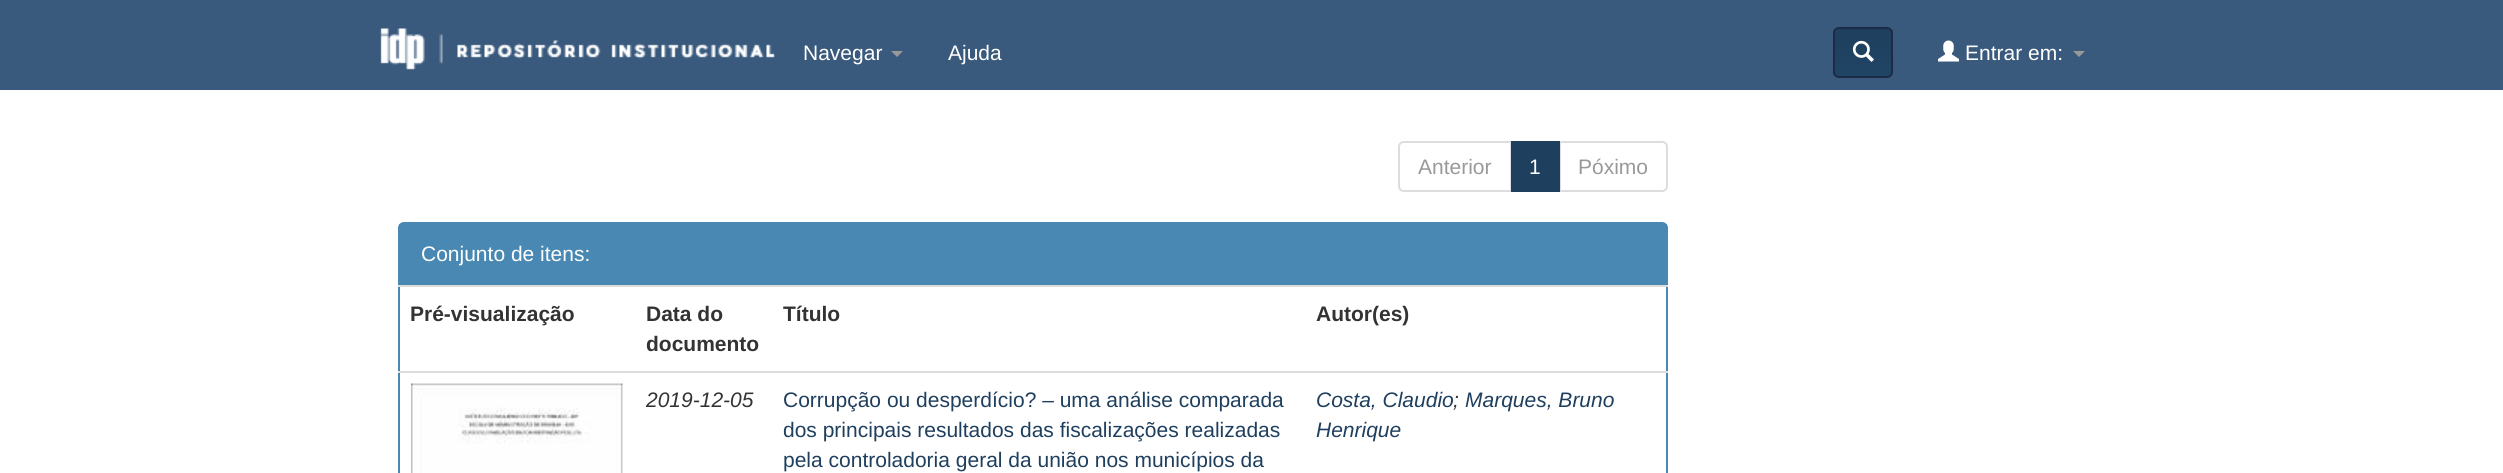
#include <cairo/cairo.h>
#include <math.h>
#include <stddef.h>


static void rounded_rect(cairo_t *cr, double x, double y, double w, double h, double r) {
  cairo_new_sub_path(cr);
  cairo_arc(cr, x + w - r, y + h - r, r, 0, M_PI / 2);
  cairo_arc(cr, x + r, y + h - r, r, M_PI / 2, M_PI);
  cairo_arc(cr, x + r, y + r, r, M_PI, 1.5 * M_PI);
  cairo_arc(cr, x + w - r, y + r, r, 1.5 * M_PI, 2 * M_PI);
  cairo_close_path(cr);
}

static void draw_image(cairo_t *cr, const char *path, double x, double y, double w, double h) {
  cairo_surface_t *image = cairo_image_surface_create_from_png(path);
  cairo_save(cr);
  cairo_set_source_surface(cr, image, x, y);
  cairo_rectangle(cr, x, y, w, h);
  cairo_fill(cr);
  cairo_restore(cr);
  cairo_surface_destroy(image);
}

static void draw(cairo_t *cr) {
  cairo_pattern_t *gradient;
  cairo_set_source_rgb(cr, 1, 1, 1);
  cairo_paint(cr);
  cairo_set_source_rgb(cr, 57 / 255.0, 89 / 255.0, 125 / 255.0);
  cairo_rectangle(cr, 0, 0, 2503, 90);
  cairo_fill(cr);
  draw_image(cr, "images/1.png", 380, 28, 395, 42);
  cairo_set_source_rgb(cr, 153 / 255.0, 153 / 255.0, 153 / 255.0);
  cairo_new_path(cr);
  cairo_move_to(cr, 891, 51);
  cairo_line_to(cr, 903, 51);
  cairo_line_to(cr, 897, 57);
  cairo_close_path(cr);
  cairo_fill(cr);
  cairo_save(cr);
  rounded_rect(cr, 1833, 27, 60, 51, 6);
  cairo_clip(cr);
  gradient = cairo_pattern_create_linear(1863, 28, 1863, 77);
  cairo_pattern_add_color_stop_rgba(gradient, 0, 31 / 255.0, 63 / 255.0, 94 / 255.0, 1);
  cairo_pattern_add_color_stop_rgba(gradient, 1, 32 / 255.0, 69 / 255.0, 101 / 255.0, 1);
  cairo_set_source(cr, gradient);
  cairo_pattern_destroy(gradient);
  cairo_rectangle(cr, 1833, 29, 60, 48);
  cairo_fill(cr);
  cairo_restore(cr);
  rounded_rect(cr, 1834, 28, 58, 49, 5);
  cairo_set_source_rgb(cr, 28 / 255.0, 44 / 255.0, 72 / 255.0);
  cairo_stroke(cr);
  draw_image(cr, "images/2.png", 1852, 40, 22, 22);
  draw_image(cr, "images/3.png", 1938, 40, 21, 22);
  cairo_set_source_rgb(cr, 153 / 255.0, 153 / 255.0, 153 / 255.0);
  cairo_new_path(cr);
  cairo_move_to(cr, 2073, 51);
  cairo_line_to(cr, 2085, 51);
  cairo_line_to(cr, 2079, 57);
  cairo_close_path(cr);
  cairo_fill(cr);
  cairo_new_path(cr);
  cairo_move_to(cr, 1404, 142);
  cairo_line_to(cr, 1511, 142);
  cairo_line_to(cr, 1511, 191);
  cairo_line_to(cr, 1404, 191);
  cairo_curve_to(cr, 1401, 191, 1399, 189, 1399, 186);
  cairo_line_to(cr, 1399, 147);
  cairo_curve_to(cr, 1399, 144, 1401, 142, 1404, 142);
  cairo_close_path(cr);
  cairo_set_source_rgb(cr, 221 / 255.0, 221 / 255.0, 221 / 255.0);
  cairo_stroke(cr);
  cairo_new_path(cr);
  cairo_move_to(cr, 1560, 142);
  cairo_line_to(cr, 1662, 142);
  cairo_curve_to(cr, 1665, 142, 1667, 144, 1667, 147);
  cairo_line_to(cr, 1667, 186);
  cairo_curve_to(cr, 1667, 189, 1665, 191, 1662, 191);
  cairo_line_to(cr, 1560, 191);
  cairo_close_path(cr);
  cairo_stroke(cr);
  cairo_set_source_rgb(cr, 31 / 255.0, 63 / 255.0, 94 / 255.0);
  cairo_rectangle(cr, 1511, 141, 49, 51);
  cairo_fill(cr);
  rounded_rect(cr, 399, 223, 1268, 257, 5);
  cairo_set_source_rgb(cr, 72 / 255.0, 136 / 255.0, 178 / 255.0);
  cairo_stroke(cr);
  cairo_rectangle(cr, 399, 224, 1268, 61);
  cairo_fill(cr);
  cairo_set_source_rgb(cr, 221 / 255.0, 221 / 255.0, 221 / 255.0);
  cairo_rectangle(cr, 398, 285, 1270, 2);
  cairo_fill(cr);
  draw_image(cr, "images/4.png", 411, 383, 212, 90);
  cairo_rectangle(cr, 398, 371, 1270, 2);
  cairo_fill(cr);
  cairo_select_font_face(cr, "Liberation Sans", CAIRO_FONT_SLANT_NORMAL, CAIRO_FONT_WEIGHT_NORMAL);
  cairo_set_font_size(cr, 21);
  cairo_set_source_rgb(cr, 1, 1, 1);
  cairo_move_to(cr, 803, 60);
  cairo_show_text(cr, "Navegar");
  cairo_move_to(cr, 948, 60);
  cairo_show_text(cr, "Ajuda");
  cairo_move_to(cr, 1965, 60);
  cairo_show_text(cr, "Entrar em:");
  cairo_set_source_rgb(cr, 153 / 255.0, 153 / 255.0, 153 / 255.0);
  cairo_move_to(cr, 1418, 174);
  cairo_show_text(cr, "Anterior");
  cairo_set_source_rgb(cr, 1, 1, 1);
  cairo_move_to(cr, 1529, 174);
  cairo_show_text(cr, "1");
  cairo_set_source_rgb(cr, 153 / 255.0, 153 / 255.0, 153 / 255.0);
  cairo_move_to(cr, 1578, 174);
  cairo_show_text(cr, "Póximo");
  cairo_set_source_rgb(cr, 1, 1, 1);
  cairo_move_to(cr, 421, 261);
  cairo_show_text(cr, "Conjunto de itens:");
  cairo_select_font_face(cr, "Liberation Sans", CAIRO_FONT_SLANT_NORMAL, CAIRO_FONT_WEIGHT_BOLD);
  cairo_set_source_rgb(cr, 51 / 255.0, 51 / 255.0, 51 / 255.0);
  cairo_move_to(cr, 410, 321);
  cairo_show_text(cr, "Pré-visualização");
  cairo_move_to(cr, 646, 321);
  cairo_show_text(cr, "Data do");
  cairo_move_to(cr, 646, 351);
  cairo_show_text(cr, "documento");
  cairo_move_to(cr, 783, 321);
  cairo_show_text(cr, "Título");
  cairo_move_to(cr, 1316, 321);
  cairo_show_text(cr, "Autor(es)");
  cairo_select_font_face(cr, "Liberation Sans", CAIRO_FONT_SLANT_ITALIC, CAIRO_FONT_WEIGHT_NORMAL);
  cairo_move_to(cr, 646, 407);
  cairo_show_text(cr, "2019-12-05");
  cairo_select_font_face(cr, "Liberation Sans", CAIRO_FONT_SLANT_NORMAL, CAIRO_FONT_WEIGHT_NORMAL);
  cairo_set_source_rgb(cr, 31 / 255.0, 63 / 255.0, 94 / 255.0);
  cairo_move_to(cr, 783, 407);
  cairo_show_text(cr, "Corrupção ou desperdício? – uma análise comparada");
  cairo_move_to(cr, 783, 437);
  cairo_show_text(cr, "dos principais resultados das fiscalizações realizadas");
  cairo_move_to(cr, 783, 467);
  cairo_show_text(cr, "pela controladoria geral da união nos municípios da");
  cairo_select_font_face(cr, "Liberation Sans", CAIRO_FONT_SLANT_ITALIC, CAIRO_FONT_WEIGHT_NORMAL);
  cairo_move_to(cr, 1316, 407);
  cairo_show_text(cr, "Costa, Claudio");
  cairo_set_source_rgb(cr, 51 / 255.0, 51 / 255.0, 51 / 255.0);
  cairo_move_to(cr, 1453, 407);
  cairo_show_text(cr, ";");
  cairo_set_source_rgb(cr, 31 / 255.0, 63 / 255.0, 94 / 255.0);
  cairo_move_to(cr, 1465, 407);
  cairo_show_text(cr, "Marques, Bruno");
  cairo_move_to(cr, 1316, 437);
  cairo_show_text(cr, "Henrique");
}

int main(void) {
  cairo_surface_t *surface = cairo_image_surface_create(CAIRO_FORMAT_RGB24, 2503, 473);
  cairo_t *cr = cairo_create(surface);
  cairo_font_options_t *options = cairo_font_options_create();
  cairo_font_options_set_hint_metrics(options, CAIRO_HINT_METRICS_OFF);
  cairo_font_options_set_hint_style(options, CAIRO_HINT_STYLE_NONE);
  cairo_set_font_options(cr, options);
  cairo_set_miter_limit(cr, 4);
  draw(cr);
  cairo_surface_write_to_png(surface, "out.png");
  cairo_font_options_destroy(options);
  cairo_destroy(cr);
  cairo_surface_destroy(surface);
  return 0;
}
